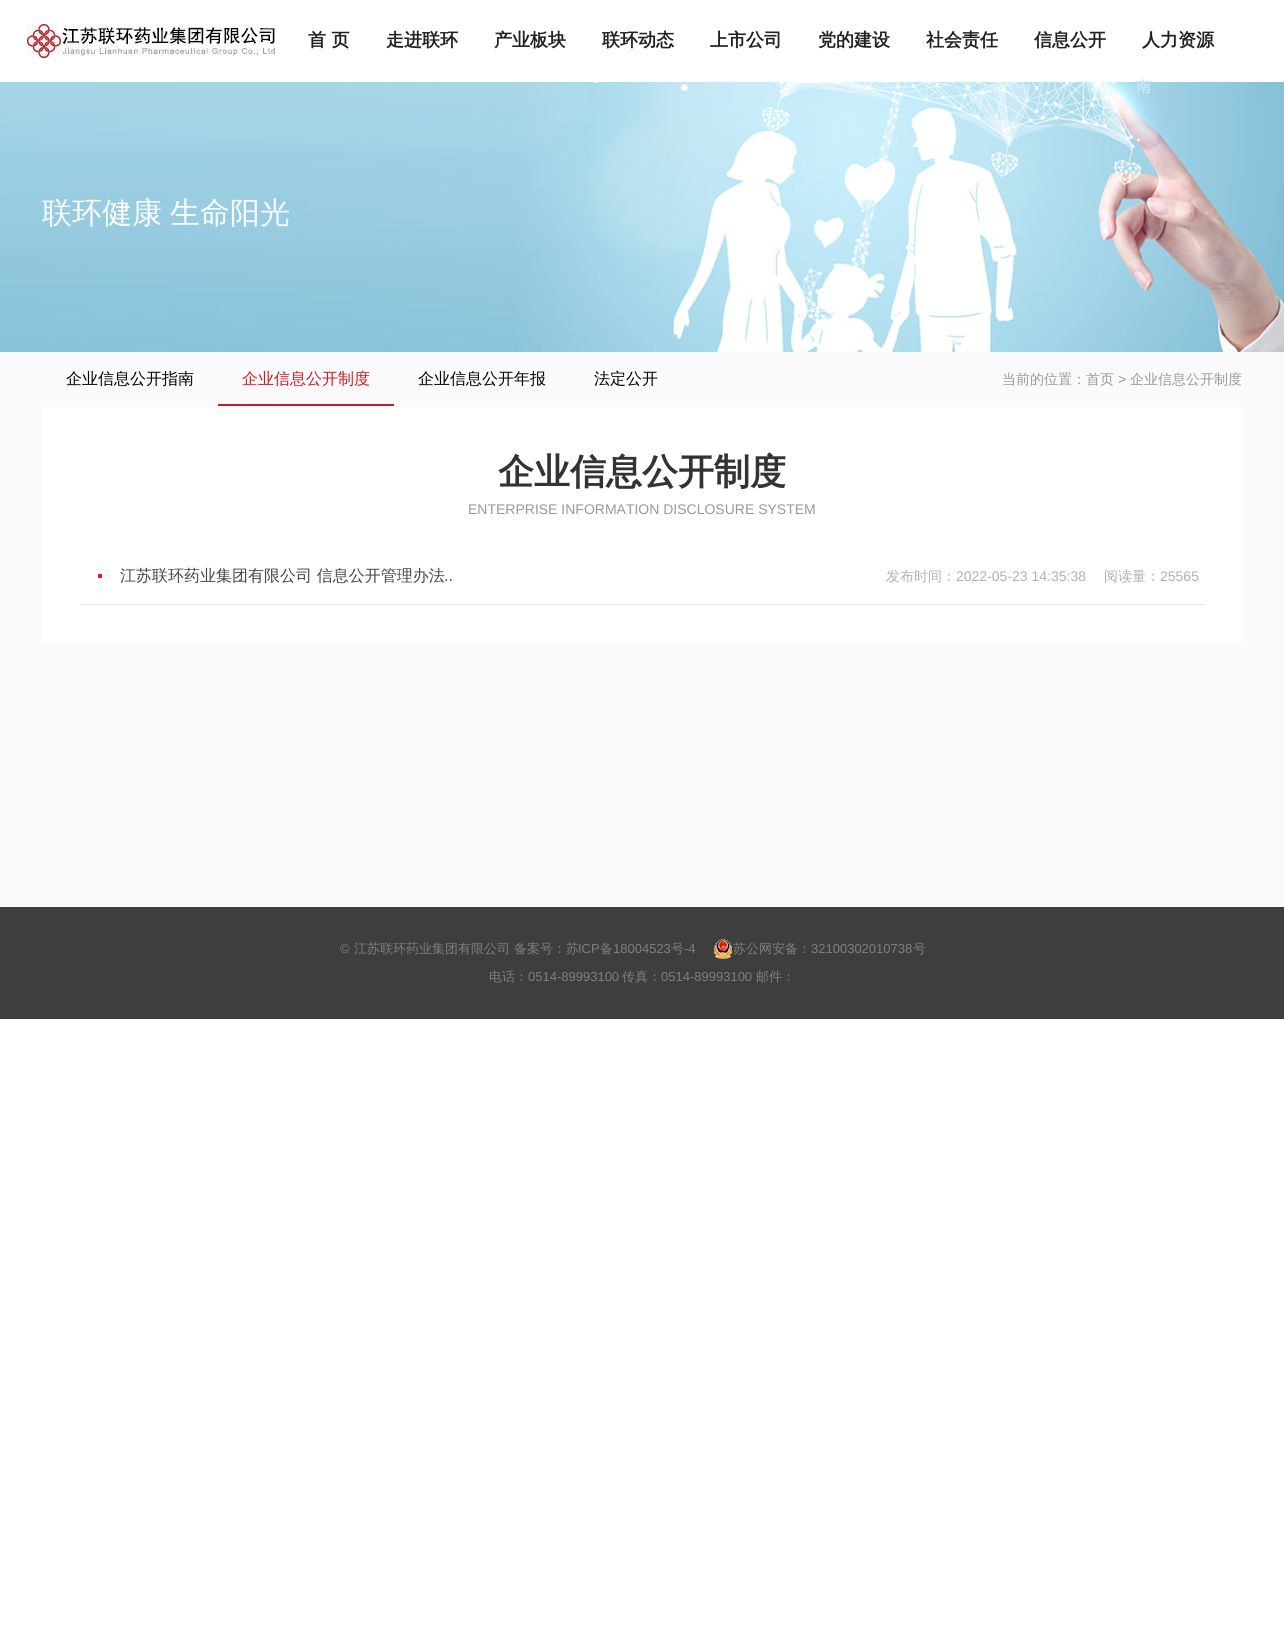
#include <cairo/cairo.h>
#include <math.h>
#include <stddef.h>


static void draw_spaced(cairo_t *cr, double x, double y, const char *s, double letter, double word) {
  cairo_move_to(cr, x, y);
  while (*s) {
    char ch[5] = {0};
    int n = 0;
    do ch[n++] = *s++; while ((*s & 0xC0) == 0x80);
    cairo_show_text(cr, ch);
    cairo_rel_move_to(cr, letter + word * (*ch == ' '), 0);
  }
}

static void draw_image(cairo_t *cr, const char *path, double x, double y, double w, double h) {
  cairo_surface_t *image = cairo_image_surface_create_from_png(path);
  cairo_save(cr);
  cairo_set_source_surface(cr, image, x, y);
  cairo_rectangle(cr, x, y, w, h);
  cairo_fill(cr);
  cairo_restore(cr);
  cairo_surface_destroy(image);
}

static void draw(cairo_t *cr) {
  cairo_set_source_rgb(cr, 1, 1, 1);
  cairo_paint(cr);
  draw_image(cr, "images/1.png", 0, 82, 1284, 270);
  draw_image(cr, "images/2.png", 27, 24, 248, 34);
  cairo_set_source_rgb(cr, 250 / 255.0, 250 / 255.0, 252 / 255.0);
  cairo_rectangle(cr, 0, 352, 1284, 555);
  cairo_fill(cr);
  cairo_set_source_rgb(cr, 200 / 255.0, 29 / 255.0, 35 / 255.0);
  cairo_rectangle(cr, 218, 404, 176, 2);
  cairo_fill(cr);
  cairo_set_source_rgb(cr, 1, 1, 1);
  cairo_rectangle(cr, 42, 407, 1200, 236);
  cairo_fill(cr);
  cairo_set_source_rgb(cr, 229 / 255.0, 229 / 255.0, 229 / 255.0);
  cairo_rectangle(cr, 80, 604, 1124, 1);
  cairo_fill(cr);
  cairo_set_source_rgb(cr, 233 / 255.0, 24 / 255.0, 40 / 255.0);
  cairo_rectangle(cr, 98, 574, 4, 4);
  cairo_fill(cr);
  cairo_set_source_rgb(cr, 62 / 255.0, 62 / 255.0, 62 / 255.0);
  cairo_rectangle(cr, 0, 907, 1284, 112);
  cairo_fill(cr);
  draw_image(cr, "images/3.png", 714, 939, 18, 20);
  cairo_select_font_face(cr, "WenQuanYi Zen Hei Medium", CAIRO_FONT_SLANT_NORMAL, CAIRO_FONT_WEIGHT_NORMAL);
  cairo_set_font_size(cr, 30);
  cairo_set_source_rgb(cr, 1, 1, 1);
  draw_spaced(cr, 42, 223, "联环健康 生命阳光", 0, -1);
  cairo_select_font_face(cr, "WenQuanYi Zen Hei", CAIRO_FONT_SLANT_NORMAL, CAIRO_FONT_WEIGHT_BOLD);
  cairo_set_font_size(cr, 18);
  cairo_set_source_rgb(cr, 34 / 255.0, 34 / 255.0, 34 / 255.0);
  cairo_move_to(cr, 308, 46);
  cairo_show_text(cr, "首 页");
  cairo_move_to(cr, 386, 46);
  cairo_show_text(cr, "走进联环");
  cairo_move_to(cr, 494, 46);
  cairo_show_text(cr, "产业板块");
  cairo_move_to(cr, 602, 46);
  cairo_show_text(cr, "联环动态");
  cairo_move_to(cr, 710, 46);
  cairo_show_text(cr, "上市公司");
  cairo_move_to(cr, 818, 46);
  cairo_show_text(cr, "党的建设");
  cairo_set_font_size(cr, 15);
  cairo_set_source_rgb(cr, 208 / 255.0, 239 / 255.0, 250 / 255.0);
  cairo_move_to(cr, 860, 212);
  cairo_show_text(cr, "察");
  cairo_set_font_size(cr, 18);
  cairo_set_source_rgb(cr, 34 / 255.0, 34 / 255.0, 34 / 255.0);
  cairo_move_to(cr, 926, 46);
  cairo_show_text(cr, "社会责任");
  cairo_move_to(cr, 1034, 46);
  cairo_show_text(cr, "信息公开");
  cairo_set_font_size(cr, 15);
  cairo_set_source_rgb(cr, 200 / 255.0, 233 / 255.0, 244 / 255.0);
  cairo_move_to(cr, 1136, 92);
  cairo_show_text(cr, "南");
  cairo_set_font_size(cr, 18);
  cairo_set_source_rgb(cr, 34 / 255.0, 34 / 255.0, 34 / 255.0);
  cairo_move_to(cr, 1142, 46);
  cairo_show_text(cr, "人力资源");
  cairo_select_font_face(cr, "WenQuanYi Zen Hei Medium", CAIRO_FONT_SLANT_NORMAL, CAIRO_FONT_WEIGHT_NORMAL);
  cairo_set_font_size(cr, 16);
  cairo_set_source_rgb(cr, 0, 0, 0);
  cairo_move_to(cr, 66, 384);
  cairo_show_text(cr, "企业信息公开指南");
  cairo_set_source_rgb(cr, 200 / 255.0, 29 / 255.0, 35 / 255.0);
  cairo_move_to(cr, 242, 384);
  cairo_show_text(cr, "企业信息公开制度");
  cairo_set_source_rgb(cr, 0, 0, 0);
  cairo_move_to(cr, 418, 384);
  cairo_show_text(cr, "企业信息公开年报");
  cairo_move_to(cr, 594, 384);
  cairo_show_text(cr, "法定公开");
  cairo_set_font_size(cr, 14);
  cairo_set_source_rgb(cr, 153 / 255.0, 153 / 255.0, 153 / 255.0);
  cairo_move_to(cr, 1002, 384);
  cairo_show_text(cr, "当前的位置：首页");
  cairo_select_font_face(cr, "Liberation Sans", CAIRO_FONT_SLANT_NORMAL, CAIRO_FONT_WEIGHT_NORMAL);
  cairo_move_to(cr, 1118, 384);
  cairo_show_text(cr, ">");
  cairo_select_font_face(cr, "WenQuanYi Zen Hei Medium", CAIRO_FONT_SLANT_NORMAL, CAIRO_FONT_WEIGHT_NORMAL);
  cairo_move_to(cr, 1130, 384);
  cairo_show_text(cr, "企业信息公开制度");
  cairo_select_font_face(cr, "WenQuanYi Zen Hei", CAIRO_FONT_SLANT_NORMAL, CAIRO_FONT_WEIGHT_BOLD);
  cairo_set_font_size(cr, 36);
  cairo_set_source_rgb(cr, 51 / 255.0, 51 / 255.0, 51 / 255.0);
  cairo_move_to(cr, 498, 484);
  cairo_show_text(cr, "企业信息公开制度");
  cairo_select_font_face(cr, "Liberation Sans", CAIRO_FONT_SLANT_NORMAL, CAIRO_FONT_WEIGHT_NORMAL);
  cairo_set_font_size(cr, 14);
  cairo_set_source_rgb(cr, 153 / 255.0, 153 / 255.0, 153 / 255.0);
  cairo_move_to(cr, 468, 514);
  cairo_show_text(cr, "ENTERPRISE INFORMATION DISCLOSURE SYSTEM");
  cairo_select_font_face(cr, "WenQuanYi Zen Hei Medium", CAIRO_FONT_SLANT_NORMAL, CAIRO_FONT_WEIGHT_NORMAL);
  cairo_set_font_size(cr, 16);
  cairo_set_source_rgb(cr, 68 / 255.0, 68 / 255.0, 68 / 255.0);
  cairo_move_to(cr, 120, 581);
  cairo_show_text(cr, "江苏联环药业集团有限公司 信息公开管理办法");
  cairo_select_font_face(cr, "Liberation Sans", CAIRO_FONT_SLANT_NORMAL, CAIRO_FONT_WEIGHT_NORMAL);
  cairo_move_to(cr, 444, 581);
  cairo_show_text(cr, "..");
  cairo_select_font_face(cr, "WenQuanYi Zen Hei Medium", CAIRO_FONT_SLANT_NORMAL, CAIRO_FONT_WEIGHT_NORMAL);
  cairo_set_font_size(cr, 14);
  cairo_set_source_rgb(cr, 177 / 255.0, 177 / 255.0, 177 / 255.0);
  cairo_move_to(cr, 886, 581);
  cairo_show_text(cr, "发布时间：");
  cairo_select_font_face(cr, "Liberation Sans", CAIRO_FONT_SLANT_NORMAL, CAIRO_FONT_WEIGHT_NORMAL);
  cairo_move_to(cr, 956, 581);
  cairo_show_text(cr, "2022-05-23 14:35:38");
  cairo_select_font_face(cr, "WenQuanYi Zen Hei Medium", CAIRO_FONT_SLANT_NORMAL, CAIRO_FONT_WEIGHT_NORMAL);
  cairo_move_to(cr, 1104, 581);
  cairo_show_text(cr, "阅读量：");
  cairo_select_font_face(cr, "Liberation Sans", CAIRO_FONT_SLANT_NORMAL, CAIRO_FONT_WEIGHT_NORMAL);
  cairo_move_to(cr, 1160, 581);
  cairo_show_text(cr, "25565");
  cairo_set_font_size(cr, 13);
  cairo_set_source_rgb(cr, 126 / 255.0, 126 / 255.0, 126 / 255.0);
  cairo_move_to(cr, 340, 953);
  cairo_show_text(cr, "©");
  cairo_select_font_face(cr, "WenQuanYi Zen Hei Medium", CAIRO_FONT_SLANT_NORMAL, CAIRO_FONT_WEIGHT_NORMAL);
  cairo_move_to(cr, 354, 953);
  cairo_show_text(cr, "江苏联环药业集团有限公司 备案号：苏");
  cairo_select_font_face(cr, "Liberation Sans", CAIRO_FONT_SLANT_NORMAL, CAIRO_FONT_WEIGHT_NORMAL);
  cairo_move_to(cr, 578, 953);
  cairo_show_text(cr, "ICP");
  cairo_select_font_face(cr, "WenQuanYi Zen Hei Medium", CAIRO_FONT_SLANT_NORMAL, CAIRO_FONT_WEIGHT_NORMAL);
  cairo_move_to(cr, 600, 953);
  cairo_show_text(cr, "备");
  cairo_select_font_face(cr, "Liberation Sans", CAIRO_FONT_SLANT_NORMAL, CAIRO_FONT_WEIGHT_NORMAL);
  cairo_move_to(cr, 613, 953);
  cairo_show_text(cr, "18004523");
  cairo_select_font_face(cr, "WenQuanYi Zen Hei Medium", CAIRO_FONT_SLANT_NORMAL, CAIRO_FONT_WEIGHT_NORMAL);
  cairo_move_to(cr, 671, 953);
  cairo_show_text(cr, "号");
  cairo_select_font_face(cr, "Liberation Sans", CAIRO_FONT_SLANT_NORMAL, CAIRO_FONT_WEIGHT_NORMAL);
  cairo_move_to(cr, 684, 953);
  cairo_show_text(cr, "-4");
  cairo_select_font_face(cr, "WenQuanYi Zen Hei Medium", CAIRO_FONT_SLANT_NORMAL, CAIRO_FONT_WEIGHT_NORMAL);
  cairo_move_to(cr, 733, 953);
  cairo_show_text(cr, "苏公网安备：");
  cairo_select_font_face(cr, "Liberation Sans", CAIRO_FONT_SLANT_NORMAL, CAIRO_FONT_WEIGHT_NORMAL);
  cairo_move_to(cr, 811, 953);
  cairo_show_text(cr, "32100302010738");
  cairo_select_font_face(cr, "WenQuanYi Zen Hei Medium", CAIRO_FONT_SLANT_NORMAL, CAIRO_FONT_WEIGHT_NORMAL);
  cairo_move_to(cr, 913, 953);
  cairo_show_text(cr, "号");
  cairo_move_to(cr, 489, 981);
  cairo_show_text(cr, "电话：");
  cairo_select_font_face(cr, "Liberation Sans", CAIRO_FONT_SLANT_NORMAL, CAIRO_FONT_WEIGHT_NORMAL);
  cairo_move_to(cr, 528, 981);
  cairo_show_text(cr, "0514-89993100");
  cairo_select_font_face(cr, "WenQuanYi Zen Hei Medium", CAIRO_FONT_SLANT_NORMAL, CAIRO_FONT_WEIGHT_NORMAL);
  cairo_move_to(cr, 622, 981);
  cairo_show_text(cr, "传真：");
  cairo_select_font_face(cr, "Liberation Sans", CAIRO_FONT_SLANT_NORMAL, CAIRO_FONT_WEIGHT_NORMAL);
  cairo_move_to(cr, 661, 981);
  cairo_show_text(cr, "0514-89993100");
  cairo_select_font_face(cr, "WenQuanYi Zen Hei Medium", CAIRO_FONT_SLANT_NORMAL, CAIRO_FONT_WEIGHT_NORMAL);
  cairo_move_to(cr, 756, 981);
  cairo_show_text(cr, "邮件：");
}

int main(void) {
  cairo_surface_t *surface = cairo_image_surface_create(CAIRO_FORMAT_RGB24, 1284, 1651);
  cairo_t *cr = cairo_create(surface);
  cairo_font_options_t *options = cairo_font_options_create();
  cairo_font_options_set_hint_metrics(options, CAIRO_HINT_METRICS_OFF);
  cairo_font_options_set_hint_style(options, CAIRO_HINT_STYLE_NONE);
  cairo_set_font_options(cr, options);
  cairo_set_miter_limit(cr, 4);
  draw(cr);
  cairo_surface_write_to_png(surface, "out.png");
  cairo_font_options_destroy(options);
  cairo_destroy(cr);
  cairo_surface_destroy(surface);
  return 0;
}
